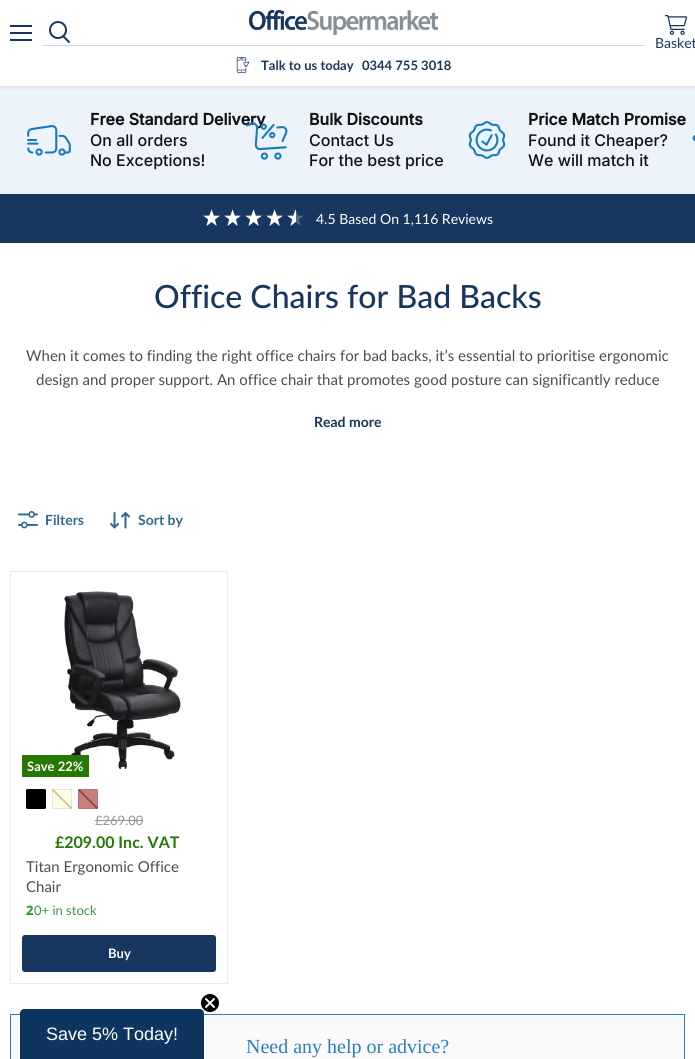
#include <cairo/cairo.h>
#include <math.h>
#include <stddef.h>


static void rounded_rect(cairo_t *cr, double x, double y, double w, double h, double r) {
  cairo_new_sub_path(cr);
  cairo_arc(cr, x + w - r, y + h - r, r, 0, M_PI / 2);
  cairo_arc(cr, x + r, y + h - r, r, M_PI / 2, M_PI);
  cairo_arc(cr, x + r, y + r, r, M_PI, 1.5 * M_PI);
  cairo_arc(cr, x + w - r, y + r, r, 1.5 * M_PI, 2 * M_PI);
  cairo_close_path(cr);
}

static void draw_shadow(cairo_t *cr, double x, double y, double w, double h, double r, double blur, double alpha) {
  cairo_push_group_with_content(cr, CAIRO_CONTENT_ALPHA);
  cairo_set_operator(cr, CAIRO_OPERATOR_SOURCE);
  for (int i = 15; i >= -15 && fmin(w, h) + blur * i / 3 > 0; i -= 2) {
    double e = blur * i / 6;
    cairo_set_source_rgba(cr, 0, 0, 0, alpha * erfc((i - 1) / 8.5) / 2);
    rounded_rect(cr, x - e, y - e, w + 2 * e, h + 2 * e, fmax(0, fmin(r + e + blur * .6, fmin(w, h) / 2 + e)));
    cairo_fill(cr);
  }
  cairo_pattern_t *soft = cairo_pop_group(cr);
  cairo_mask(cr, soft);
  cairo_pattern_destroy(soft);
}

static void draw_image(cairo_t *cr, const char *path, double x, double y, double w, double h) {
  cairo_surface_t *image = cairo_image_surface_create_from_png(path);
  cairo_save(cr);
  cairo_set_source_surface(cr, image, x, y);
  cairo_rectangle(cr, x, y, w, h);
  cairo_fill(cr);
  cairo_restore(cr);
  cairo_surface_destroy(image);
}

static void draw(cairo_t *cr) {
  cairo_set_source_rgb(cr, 1, 1, 1);
  cairo_paint(cr);
  cairo_set_source_rgb(cr, 1, 254 / 255.0, 227 / 255.0);
  cairo_rectangle(cr, 52, 789, 20, 20);
  cairo_fill(cr);
  cairo_set_source_rgb(cr, 237 / 255.0, 243 / 255.0, 251 / 255.0);
  cairo_rectangle(cr, 0, 86, 695, 108);
  cairo_fill(cr);
  cairo_save(cr);
  cairo_rectangle(cr, 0, 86, 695, 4);
  cairo_clip(cr);
  cairo_set_source_rgb(cr, 128 / 255.0, 128 / 255.0, 128 / 255.0);
  draw_shadow(cr, 0, 1, 695, 86, 0, 2, 0.25);
  cairo_restore(cr);
  cairo_set_source_rgb(cr, 23 / 255.0, 55 / 255.0, 96 / 255.0);
  cairo_rectangle(cr, 10, 25, 22, 2);
  cairo_fill(cr);
  cairo_rectangle(cr, 10, 32, 22, 2);
  cairo_fill(cr);
  cairo_rectangle(cr, 10, 39, 22, 2);
  cairo_fill(cr);
  cairo_new_path(cr);
  cairo_move_to(cr, 69, 42);
  cairo_line_to(cr, 63.5, 36.5);
  cairo_set_line_cap(cr, CAIRO_LINE_CAP_ROUND);
  cairo_stroke(cr);
  cairo_arc(cr, 58, 30, 8, 0, 2 * M_PI);
  cairo_set_line_cap(cr, CAIRO_LINE_CAP_BUTT);
  cairo_stroke(cr);
  draw_image(cr, "images/1.png", 664, 15, 24, 20);
  draw_image(cr, "images/2.png", 249, 10, 189, 25);
  cairo_set_source_rgb(cr, 209 / 255.0, 215 / 255.0, 223 / 255.0);
  cairo_rectangle(cr, 42, 45, 603, 1);
  cairo_fill(cr);
  draw_image(cr, "images/3.png", 236, 57, 14, 16);
  draw_image(cr, "images/4.png", 27, 125, 44, 31);
  draw_image(cr, "images/6.png", 468, 121, 38, 38);
  draw_image(cr, "images/7.png", 692, 135, 3, 7);
  cairo_set_source_rgb(cr, 23 / 255.0, 55 / 255.0, 96 / 255.0);
  cairo_rectangle(cr, 0, 194, 695, 49);
  cairo_fill(cr);
  draw_image(cr, "images/8.png", 203, 209, 17, 17);
  draw_image(cr, "images/8.png", 224, 209, 17, 17);
  draw_image(cr, "images/8.png", 245, 209, 17, 17);
  draw_image(cr, "images/8.png", 266, 209, 17, 17);
  draw_image(cr, "images/9.png", 287, 209, 17, 17);
  draw_image(cr, "images/10.png", 18, 511, 20, 18);
  draw_image(cr, "images/11.png", 110, 512, 20, 17);
  cairo_rectangle(cr, 10.5, 571.5, 217, 412);
  cairo_set_source_rgb(cr, 235 / 255.0, 235 / 255.0, 235 / 255.0);
  cairo_set_line_width(cr, 1);
  cairo_stroke(cr);
  draw_image(cr, "images/12.png", 64, 591, 117, 178);
  cairo_set_source_rgb(cr, 38 / 255.0, 120 / 255.0, 3 / 255.0);
  cairo_rectangle(cr, 22, 755, 67, 22);
  cairo_fill(cr);
  cairo_set_source_rgb(cr, 0, 0, 0);
  rounded_rect(cr, 26, 789, 20, 20, 1.5);
  cairo_fill(cr);
  rounded_rect(cr, 26.5, 789.5, 19, 19, 1);
  cairo_set_source_rgba(cr, 0, 0, 0, 0.15);
  cairo_stroke(cr);
  draw_image(cr, "images/13.png", 52, 789, 20, 20);
  cairo_rectangle(cr, 52.5, 789.5, 19, 19);
  cairo_set_source_rgba(cr, 0, 0, 0, 0.09);
  cairo_stroke(cr);
  draw_image(cr, "images/14.png", 78, 789, 20, 20);
  cairo_set_source_rgba(cr, 165 / 255.0, 42 / 255.0, 42 / 255.0, 0.6);
  rounded_rect(cr, 78, 789, 20, 20, 1.5);
  cairo_fill(cr);
  cairo_rectangle(cr, 78.5, 789.5, 19, 19);
  cairo_set_source_rgba(cr, 0, 0, 0, 0.09);
  cairo_stroke(cr);
  cairo_set_source_rgb(cr, 148 / 255.0, 148 / 255.0, 148 / 255.0);
  cairo_rectangle(cr, 95, 820, 48, 1);
  cairo_fill(cr);
  cairo_set_source_rgb(cr, 23 / 255.0, 55 / 255.0, 96 / 255.0);
  rounded_rect(cr, 22.5, 935.5, 193, 36, 2.5);
  cairo_fill_preserve(cr);
  cairo_stroke(cr);
  cairo_set_source_rgb(cr, 250 / 255.0, 250 / 255.0, 250 / 255.0);
  cairo_rectangle(cr, 10.5, 1014.5, 674, 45);
  cairo_fill_preserve(cr);
  cairo_set_source_rgb(cr, 41 / 255.0, 127 / 255.0, 191 / 255.0);
  cairo_stroke(cr);
  cairo_set_source_rgb(cr, 14 / 255.0, 53 / 255.0, 96 / 255.0);
  cairo_new_path(cr);
  cairo_move_to(cr, 24, 1009);
  cairo_line_to(cr, 200, 1009);
  cairo_curve_to(cr, 202, 1009, 204, 1011, 204, 1013);
  cairo_line_to(cr, 204, 1059);
  cairo_line_to(cr, 20, 1059);
  cairo_line_to(cr, 20, 1013);
  cairo_curve_to(cr, 20, 1011, 22, 1009, 24, 1009);
  cairo_close_path(cr);
  cairo_fill(cr);
  draw_image(cr, "images/15.png", 200, 993, 20, 20);
  cairo_select_font_face(cr, "Lato", CAIRO_FONT_SLANT_NORMAL, CAIRO_FONT_WEIGHT_NORMAL);
  cairo_set_font_size(cr, 14);
  cairo_set_source_rgb(cr, 23 / 255.0, 55 / 255.0, 96 / 255.0);
  cairo_move_to(cr, 655, 48);
  cairo_show_text(cr, "Basket");
  cairo_select_font_face(cr, "Lato", CAIRO_FONT_SLANT_NORMAL, CAIRO_FONT_WEIGHT_BOLD);
  cairo_set_font_size(cr, 13);
  cairo_move_to(cr, 261, 70);
  cairo_show_text(cr, "Talk to us today");
  cairo_move_to(cr, 362, 70);
  cairo_show_text(cr, "0344 755 3018");
  cairo_select_font_face(cr, "Inter", CAIRO_FONT_SLANT_NORMAL, CAIRO_FONT_WEIGHT_BOLD);
  cairo_set_font_size(cr, 16);
  cairo_set_source_rgb(cr, 17 / 255.0, 17 / 255.0, 17 / 255.0);
  cairo_move_to(cr, 90, 125);
  cairo_show_text(cr, "Free Standard Delivery");
  cairo_select_font_face(cr, "Inter Medium", CAIRO_FONT_SLANT_NORMAL, CAIRO_FONT_WEIGHT_NORMAL);
  cairo_move_to(cr, 90, 146);
  cairo_show_text(cr, "On all orders");
  cairo_move_to(cr, 90, 166);
  cairo_show_text(cr, "No Exceptions!");
  draw_image(cr, "images/5.png", 246, 122, 42, 38);
  cairo_select_font_face(cr, "Inter", CAIRO_FONT_SLANT_NORMAL, CAIRO_FONT_WEIGHT_BOLD);
  cairo_move_to(cr, 309, 125);
  cairo_show_text(cr, "Bulk Discounts");
  cairo_select_font_face(cr, "Inter Medium", CAIRO_FONT_SLANT_NORMAL, CAIRO_FONT_WEIGHT_NORMAL);
  cairo_move_to(cr, 309, 146);
  cairo_show_text(cr, "Contact Us");
  cairo_move_to(cr, 309, 166);
  cairo_show_text(cr, "For the best price");
  cairo_select_font_face(cr, "Inter", CAIRO_FONT_SLANT_NORMAL, CAIRO_FONT_WEIGHT_BOLD);
  cairo_move_to(cr, 528, 125);
  cairo_show_text(cr, "Price Match Promise");
  cairo_select_font_face(cr, "Inter Medium", CAIRO_FONT_SLANT_NORMAL, CAIRO_FONT_WEIGHT_NORMAL);
  cairo_move_to(cr, 528, 146);
  cairo_show_text(cr, "Found it Cheaper?");
  cairo_move_to(cr, 528, 166);
  cairo_show_text(cr, "We will match it");
  cairo_select_font_face(cr, "Lato", CAIRO_FONT_SLANT_NORMAL, CAIRO_FONT_WEIGHT_NORMAL);
  cairo_set_font_size(cr, 14);
  cairo_set_source_rgb(cr, 1, 1, 1);
  cairo_move_to(cr, 316, 224);
  cairo_show_text(cr, "4.5 Based On 1,116 Reviews");
  cairo_select_font_face(cr, "Lato Medium", CAIRO_FONT_SLANT_NORMAL, CAIRO_FONT_WEIGHT_NORMAL);
  cairo_set_font_size(cr, 32);
  cairo_set_source_rgb(cr, 23 / 255.0, 55 / 255.0, 96 / 255.0);
  cairo_move_to(cr, 154, 308);
  cairo_show_text(cr, "Office Chairs for Bad Backs");
  cairo_select_font_face(cr, "Lato", CAIRO_FONT_SLANT_NORMAL, CAIRO_FONT_WEIGHT_NORMAL);
  cairo_set_font_size(cr, 15);
  cairo_set_source_rgb(cr, 77 / 255.0, 77 / 255.0, 77 / 255.0);
  cairo_move_to(cr, 26, 361);
  cairo_show_text(cr, "When it comes to finding the right office chairs for bad backs, it’s essential to prioritise ergonomic");
  cairo_move_to(cr, 36, 385);
  cairo_show_text(cr, "design and proper support. An office chair that promotes good posture can significantly reduce");
  cairo_select_font_face(cr, "Lato", CAIRO_FONT_SLANT_NORMAL, CAIRO_FONT_WEIGHT_BOLD);
  cairo_set_font_size(cr, 14);
  cairo_set_source_rgb(cr, 23 / 255.0, 55 / 255.0, 96 / 255.0);
  cairo_move_to(cr, 314, 427);
  cairo_show_text(cr, "Read more");
  cairo_set_source_rgb(cr, 48 / 255.0, 106 / 255.0, 144 / 255.0);
  cairo_move_to(cr, 45, 525);
  cairo_show_text(cr, "Filters");
  cairo_move_to(cr, 138, 525);
  cairo_show_text(cr, "Sort by");
  cairo_set_font_size(cr, 13);
  cairo_set_source_rgb(cr, 1, 1, 1);
  cairo_move_to(cr, 27, 771);
  cairo_show_text(cr, "Save 22%");
  cairo_select_font_face(cr, "Lato", CAIRO_FONT_SLANT_NORMAL, CAIRO_FONT_WEIGHT_NORMAL);
  cairo_set_source_rgb(cr, 148 / 255.0, 148 / 255.0, 148 / 255.0);
  cairo_move_to(cr, 95, 825);
  cairo_show_text(cr, "£269.00");
  cairo_select_font_face(cr, "Lato", CAIRO_FONT_SLANT_NORMAL, CAIRO_FONT_WEIGHT_BOLD);
  cairo_set_font_size(cr, 16);
  cairo_set_source_rgb(cr, 38 / 255.0, 120 / 255.0, 3 / 255.0);
  cairo_move_to(cr, 55, 848);
  cairo_show_text(cr, "£209.00 Inc. VAT");
  cairo_select_font_face(cr, "Lato", CAIRO_FONT_SLANT_NORMAL, CAIRO_FONT_WEIGHT_NORMAL);
  cairo_set_font_size(cr, 15);
  cairo_set_source_rgb(cr, 77 / 255.0, 77 / 255.0, 77 / 255.0);
  cairo_move_to(cr, 26, 872);
  cairo_show_text(cr, "Titan Ergonomic Office");
  cairo_move_to(cr, 26, 892);
  cairo_show_text(cr, "Chair");
  cairo_select_font_face(cr, "Noto Sans ExtraBold", CAIRO_FONT_SLANT_NORMAL, CAIRO_FONT_WEIGHT_NORMAL);
  cairo_set_font_size(cr, 13);
  cairo_set_source_rgb(cr, 60 / 255.0, 147 / 255.0, 66 / 255.0);
  cairo_move_to(cr, 26, 915);
  cairo_show_text(cr, "2");
  cairo_select_font_face(cr, "Lato", CAIRO_FONT_SLANT_NORMAL, CAIRO_FONT_WEIGHT_NORMAL);
  cairo_move_to(cr, 34, 915);
  cairo_show_text(cr, "0+ in stock");
  cairo_select_font_face(cr, "Lato", CAIRO_FONT_SLANT_NORMAL, CAIRO_FONT_WEIGHT_BOLD);
  cairo_set_source_rgb(cr, 1, 1, 1);
  cairo_move_to(cr, 108, 958);
  cairo_show_text(cr, "Buy");
  cairo_select_font_face(cr, "Liberation Serif", CAIRO_FONT_SLANT_NORMAL, CAIRO_FONT_WEIGHT_NORMAL);
  cairo_set_font_size(cr, 20);
  cairo_set_source_rgb(cr, 41 / 255.0, 127 / 255.0, 191 / 255.0);
  cairo_move_to(cr, 246, 1053);
  cairo_show_text(cr, "Need any help or advice?");
  cairo_select_font_face(cr, "Liberation Sans", CAIRO_FONT_SLANT_NORMAL, CAIRO_FONT_WEIGHT_NORMAL);
  cairo_set_font_size(cr, 18);
  cairo_set_source_rgb(cr, 1, 1, 1);
  cairo_move_to(cr, 46, 1040);
  cairo_show_text(cr, "Save 5% Today!");
}

int main(void) {
  cairo_surface_t *surface = cairo_image_surface_create(CAIRO_FORMAT_RGB24, 695, 1059);
  cairo_t *cr = cairo_create(surface);
  cairo_font_options_t *options = cairo_font_options_create();
  cairo_font_options_set_hint_metrics(options, CAIRO_HINT_METRICS_OFF);
  cairo_font_options_set_hint_style(options, CAIRO_HINT_STYLE_NONE);
  cairo_set_font_options(cr, options);
  cairo_set_miter_limit(cr, 4);
  draw(cr);
  cairo_surface_write_to_png(surface, "out.png");
  cairo_font_options_destroy(options);
  cairo_destroy(cr);
  cairo_surface_destroy(surface);
  return 0;
}
